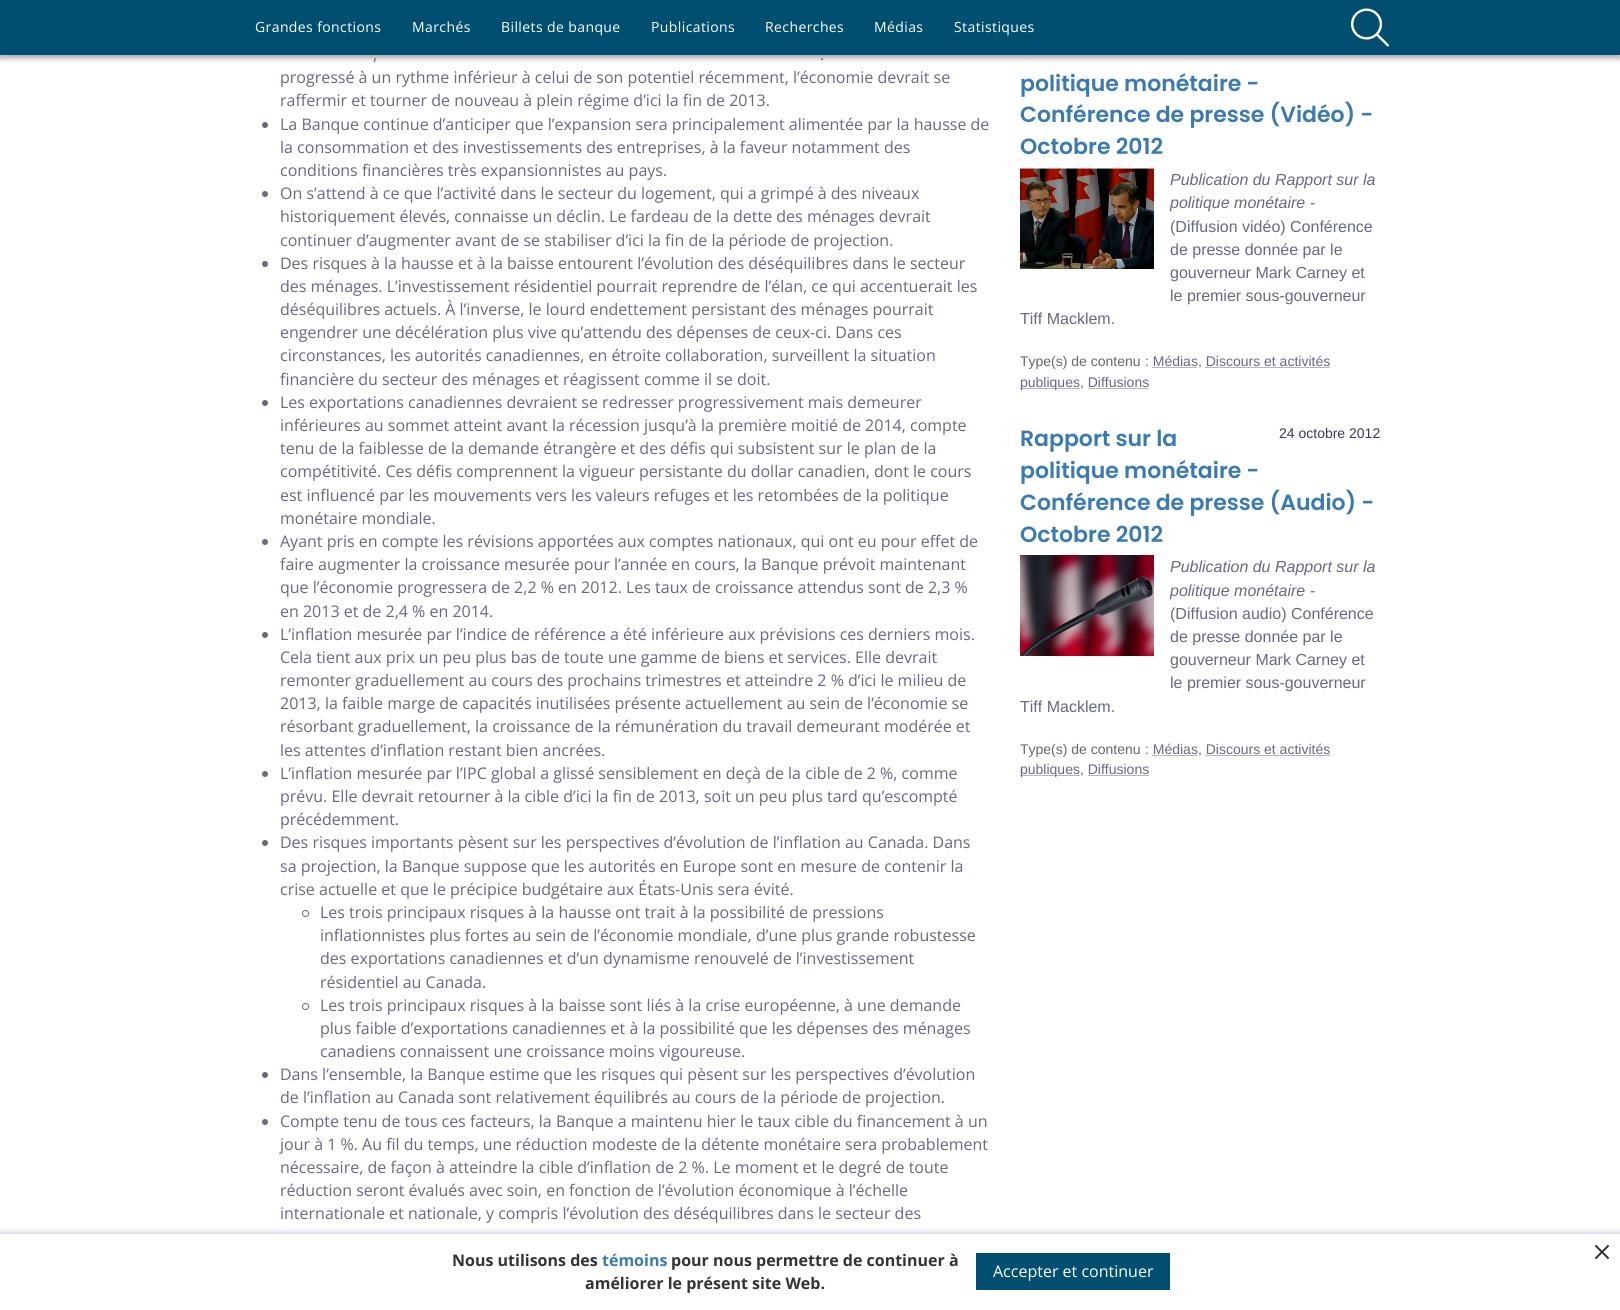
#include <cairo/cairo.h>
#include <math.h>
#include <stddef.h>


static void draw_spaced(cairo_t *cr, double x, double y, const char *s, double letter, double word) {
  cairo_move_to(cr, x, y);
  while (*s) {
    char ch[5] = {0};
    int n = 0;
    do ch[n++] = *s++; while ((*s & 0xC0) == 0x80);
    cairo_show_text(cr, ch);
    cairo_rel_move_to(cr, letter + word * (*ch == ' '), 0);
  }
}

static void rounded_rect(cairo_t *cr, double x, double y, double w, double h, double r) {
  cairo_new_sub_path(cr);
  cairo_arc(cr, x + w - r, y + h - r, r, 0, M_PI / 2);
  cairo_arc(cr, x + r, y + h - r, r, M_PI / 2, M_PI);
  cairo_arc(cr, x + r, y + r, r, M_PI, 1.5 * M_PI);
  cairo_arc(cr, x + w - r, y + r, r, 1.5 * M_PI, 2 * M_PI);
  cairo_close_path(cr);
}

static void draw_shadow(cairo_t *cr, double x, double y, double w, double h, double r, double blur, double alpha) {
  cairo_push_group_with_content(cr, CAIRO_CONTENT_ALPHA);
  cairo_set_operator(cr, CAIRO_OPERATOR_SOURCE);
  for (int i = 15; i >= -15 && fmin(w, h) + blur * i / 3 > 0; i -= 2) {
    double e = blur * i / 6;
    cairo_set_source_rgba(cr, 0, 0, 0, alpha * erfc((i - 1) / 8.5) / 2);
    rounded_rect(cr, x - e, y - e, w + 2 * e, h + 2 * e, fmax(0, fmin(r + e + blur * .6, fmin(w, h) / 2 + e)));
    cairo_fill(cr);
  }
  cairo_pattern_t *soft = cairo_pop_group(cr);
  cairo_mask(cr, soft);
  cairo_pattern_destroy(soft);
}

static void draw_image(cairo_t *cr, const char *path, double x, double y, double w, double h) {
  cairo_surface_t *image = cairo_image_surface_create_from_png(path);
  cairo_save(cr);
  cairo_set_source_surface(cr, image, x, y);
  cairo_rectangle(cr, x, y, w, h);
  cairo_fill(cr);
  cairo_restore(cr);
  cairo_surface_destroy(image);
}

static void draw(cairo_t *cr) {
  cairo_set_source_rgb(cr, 1, 1, 1);
  cairo_paint(cr);
  cairo_set_source_rgb(cr, 0, 0, 0);
  draw_shadow(cr, 0, 3, 1620, 55, 0, 3, 0.23);
  draw_shadow(cr, 0, 3, 1620, 55, 0, 3, 0.16);
  cairo_set_source_rgb(cr, 0, 79 / 255.0, 113 / 255.0);
  cairo_rectangle(cr, 0, 0, 1620, 55);
  cairo_fill(cr);
  draw_image(cr, "images/1.png", 1351, 8, 38, 39);
  cairo_set_source_rgb(cr, 103 / 255.0, 105 / 255.0, 132 / 255.0);
  cairo_arc(cr, 265, 125, 3, 0, 2 * M_PI);
  cairo_fill(cr);
  cairo_arc(cr, 265, 194, 3, 0, 2 * M_PI);
  cairo_fill(cr);
  cairo_arc(cr, 265, 264, 3, 0, 2 * M_PI);
  cairo_fill(cr);
  cairo_arc(cr, 265, 403, 3, 0, 2 * M_PI);
  cairo_fill(cr);
  cairo_arc(cr, 265, 542, 3, 0, 2 * M_PI);
  cairo_fill(cr);
  cairo_arc(cr, 265, 635, 3, 0, 2 * M_PI);
  cairo_fill(cr);
  cairo_arc(cr, 265, 774, 3, 0, 2 * M_PI);
  cairo_fill(cr);
  cairo_arc(cr, 265, 843, 3, 0, 2 * M_PI);
  cairo_fill(cr);
  cairo_arc(cr, 305.5, 913.5, 3, 0, 2 * M_PI);
  cairo_set_line_width(cr, 1);
  cairo_stroke(cr);
  cairo_arc(cr, 305.5, 1006.5, 3, 0, 2 * M_PI);
  cairo_stroke(cr);
  cairo_arc(cr, 265, 1075, 3, 0, 2 * M_PI);
  cairo_fill(cr);
  cairo_arc(cr, 265, 1122, 3, 0, 2 * M_PI);
  cairo_fill(cr);
  draw_image(cr, "images/2.png", 1020, 168, 134, 101);
  cairo_set_source_rgb(cr, 183 / 255.0, 181 / 255.0, 191 / 255.0);
  cairo_rectangle(cr, 1020, 388, 60, 1);
  cairo_fill(cr);
  draw_image(cr, "images/3.png", 1020, 555, 134, 101);
  cairo_rectangle(cr, 1020, 775, 60, 1);
  cairo_fill(cr);
  cairo_set_source_rgb(cr, 79 / 255.0, 96 / 255.0, 144 / 255.0);
  draw_shadow(cr, 0, 1232, 1620, 76, 0, 2.5, 0.3);
  cairo_set_source_rgb(cr, 1, 1, 1);
  cairo_rectangle(cr, 0, 1234, 1620, 76);
  cairo_fill(cr);
  cairo_set_source_rgb(cr, 0, 79 / 255.0, 113 / 255.0);
  cairo_rectangle(cr, 976, 1253, 194, 37);
  cairo_fill(cr);
  cairo_new_path(cr);
  cairo_move_to(cr, 1608, 1246);
  cairo_line_to(cr, 1596, 1258);
  cairo_move_to(cr, 1596, 1246);
  cairo_line_to(cr, 1608, 1258);
  cairo_set_source_rgb(cr, 51 / 255.0, 51 / 255.0, 51 / 255.0);
  cairo_set_line_width(cr, 2);
  cairo_set_line_cap(cr, CAIRO_LINE_CAP_ROUND);
  cairo_set_line_join(cr, CAIRO_LINE_JOIN_ROUND);
  cairo_stroke(cr);
  cairo_select_font_face(cr, "Open Sans", CAIRO_FONT_SLANT_NORMAL, CAIRO_FONT_WEIGHT_NORMAL);
  cairo_set_font_size(cr, 14);
  cairo_set_source_rgb(cr, 1, 1, 1);
  draw_spaced(cr, 255, 32, "Grandes fonctions", 0.4, 0);
  draw_spaced(cr, 412, 32, "Marchés", 0.4, 0);
  draw_spaced(cr, 501, 32, "Billets de banque", 0.4, 0);
  draw_spaced(cr, 651, 32, "Publications", 0.4, 0);
  draw_spaced(cr, 765, 32, "Recherches", 0.4, 0);
  draw_spaced(cr, 874, 32, "Médias", 0.4, 0);
  draw_spaced(cr, 954, 32, "Statistiques", 0.4, 0);
  cairo_set_font_size(cr, 16);
  cairo_set_source_rgb(cr, 103 / 255.0, 105 / 255.0, 132 / 255.0);
  cairo_move_to(cr, 373, 60);
  cairo_show_text(cr, ",");
  cairo_move_to(cr, 820, 60);
  cairo_show_text(cr, ".");
  cairo_move_to(cr, 280, 83);
  cairo_show_text(cr, "progressé à un rythme inférieur à celui de son potentiel récemment, l’économie devrait se");
  cairo_move_to(cr, 280, 106);
  cairo_show_text(cr, "raffermir et tourner de nouveau à plein régime d’ici la fin de 2013.");
  cairo_move_to(cr, 280, 130);
  cairo_show_text(cr, "La Banque continue d’anticiper que l’expansion sera principalement alimentée par la hausse de");
  cairo_move_to(cr, 280, 153);
  cairo_show_text(cr, "la consommation et des investissements des entreprises, à la faveur notamment des");
  cairo_move_to(cr, 280, 176);
  cairo_show_text(cr, "conditions financières très expansionnistes au pays.");
  cairo_move_to(cr, 280, 199);
  cairo_show_text(cr, "On s’attend à ce que l’activité dans le secteur du logement, qui a grimpé à des niveaux");
  cairo_move_to(cr, 280, 222);
  cairo_show_text(cr, "historiquement élevés, connaisse un déclin. Le fardeau de la dette des ménages devrait");
  cairo_move_to(cr, 280, 246);
  cairo_show_text(cr, "continuer d’augmenter avant de se stabiliser d’ici la fin de la période de projection.");
  cairo_move_to(cr, 280, 269);
  cairo_show_text(cr, "Des risques à la hausse et à la baisse entourent l’évolution des déséquilibres dans le secteur");
  cairo_move_to(cr, 280, 292);
  cairo_show_text(cr, "des ménages. L’investissement résidentiel pourrait reprendre de l’élan, ce qui accentuerait les");
  cairo_move_to(cr, 280, 315);
  cairo_show_text(cr, "déséquilibres actuels. À l’inverse, le lourd endettement persistant des ménages pourrait");
  cairo_move_to(cr, 280, 338);
  cairo_show_text(cr, "engendrer une décélération plus vive qu’attendu des dépenses de ceux-ci. Dans ces");
  cairo_move_to(cr, 280, 361);
  cairo_show_text(cr, "circonstances, les autorités canadiennes, en étroite collaboration, surveillent la situation");
  cairo_move_to(cr, 280, 385);
  cairo_show_text(cr, "financière du secteur des ménages et réagissent comme il se doit.");
  cairo_move_to(cr, 280, 408);
  cairo_show_text(cr, "Les exportations canadiennes devraient se redresser progressivement mais demeurer");
  cairo_move_to(cr, 280, 431);
  cairo_show_text(cr, "inférieures au sommet atteint avant la récession jusqu’à la première moitié de 2014, compte");
  cairo_move_to(cr, 280, 454);
  cairo_show_text(cr, "tenu de la faiblesse de la demande étrangère et des défis qui subsistent sur le plan de la");
  cairo_move_to(cr, 280, 477);
  cairo_show_text(cr, "compétitivité. Ces défis comprennent la vigueur persistante du dollar canadien, dont le cours");
  cairo_move_to(cr, 280, 501);
  cairo_show_text(cr, "est influencé par les mouvements vers les valeurs refuges et les retombées de la politique");
  cairo_move_to(cr, 280, 524);
  cairo_show_text(cr, "monétaire mondiale.");
  cairo_move_to(cr, 280, 547);
  cairo_show_text(cr, "Ayant pris en compte les révisions apportées aux comptes nationaux, qui ont eu pour effet de");
  cairo_move_to(cr, 280, 570);
  cairo_show_text(cr, "faire augmenter la croissance mesurée pour l’année en cours, la Banque prévoit maintenant");
  cairo_move_to(cr, 280, 593);
  cairo_show_text(cr, "que l’économie progressera de 2,2 % en 2012. Les taux de croissance attendus sont de 2,3 %");
  cairo_move_to(cr, 280, 617);
  cairo_show_text(cr, "en 2013 et de 2,4 % en 2014.");
  cairo_move_to(cr, 280, 640);
  cairo_show_text(cr, "L’inflation mesurée par l’indice de référence a été inférieure aux prévisions ces derniers mois.");
  cairo_move_to(cr, 280, 663);
  cairo_show_text(cr, "Cela tient aux prix un peu plus bas de toute une gamme de biens et services. Elle devrait");
  cairo_move_to(cr, 280, 686);
  cairo_show_text(cr, "remonter graduellement au cours des prochains trimestres et atteindre 2 % d’ici le milieu de");
  cairo_move_to(cr, 280, 709);
  cairo_show_text(cr, "2013, la faible marge de capacités inutilisées présente actuellement au sein de l’économie se");
  cairo_move_to(cr, 280, 732);
  cairo_show_text(cr, "résorbant graduellement, la croissance de la rémunération du travail demeurant modérée et");
  cairo_move_to(cr, 280, 756);
  cairo_show_text(cr, "les attentes d’inflation restant bien ancrées.");
  cairo_move_to(cr, 280, 779);
  cairo_show_text(cr, "L’inflation mesurée par l’IPC global a glissé sensiblement en deçà de la cible de 2 %, comme");
  cairo_move_to(cr, 280, 802);
  cairo_show_text(cr, "prévu. Elle devrait retourner à la cible d’ici la fin de 2013, soit un peu plus tard qu’escompté");
  cairo_move_to(cr, 280, 825);
  cairo_show_text(cr, "précédemment.");
  cairo_move_to(cr, 280, 848);
  cairo_show_text(cr, "Des risques importants pèsent sur les perspectives d’évolution de l’inflation au Canada. Dans");
  cairo_move_to(cr, 280, 872);
  cairo_show_text(cr, "sa projection, la Banque suppose que les autorités en Europe sont en mesure de contenir la");
  cairo_move_to(cr, 280, 895);
  cairo_show_text(cr, "crise actuelle et que le précipice budgétaire aux États-Unis sera évité.");
  cairo_move_to(cr, 320, 918);
  cairo_show_text(cr, "Les trois principaux risques à la hausse ont trait à la possibilité de pressions");
  cairo_move_to(cr, 320, 941);
  cairo_show_text(cr, "inflationnistes plus fortes au sein de l’économie mondiale, d’une plus grande robustesse");
  cairo_move_to(cr, 320, 964);
  cairo_show_text(cr, "des exportations canadiennes et d’un dynamisme renouvelé de l’investissement");
  cairo_move_to(cr, 320, 988);
  cairo_show_text(cr, "résidentiel au Canada.");
  cairo_move_to(cr, 320, 1011);
  cairo_show_text(cr, "Les trois principaux risques à la baisse sont liés à la crise européenne, à une demande");
  cairo_move_to(cr, 320, 1034);
  cairo_show_text(cr, "plus faible d’exportations canadiennes et à la possibilité que les dépenses des ménages");
  cairo_move_to(cr, 320, 1057);
  cairo_show_text(cr, "canadiens connaissent une croissance moins vigoureuse.");
  cairo_move_to(cr, 280, 1080);
  cairo_show_text(cr, "Dans l’ensemble, la Banque estime que les risques qui pèsent sur les perspectives d’évolution");
  cairo_move_to(cr, 280, 1103);
  cairo_show_text(cr, "de l’inflation au Canada sont relativement équilibrés au cours de la période de projection.");
  cairo_move_to(cr, 280, 1127);
  cairo_show_text(cr, "Compte tenu de tous ces facteurs, la Banque a maintenu hier le taux cible du financement à un");
  cairo_move_to(cr, 280, 1150);
  cairo_show_text(cr, "jour à 1 %. Au fil du temps, une réduction modeste de la détente monétaire sera probablement");
  cairo_move_to(cr, 280, 1173);
  cairo_show_text(cr, "nécessaire, de façon à atteindre la cible d’inflation de 2 %. Le moment et le degré de toute");
  cairo_move_to(cr, 280, 1196);
  cairo_show_text(cr, "réduction seront évalués avec soin, en fonction de l’évolution économique à l’échelle");
  cairo_move_to(cr, 280, 1219);
  cairo_show_text(cr, "internationale et nationale, y compris l’évolution des déséquilibres dans le secteur des");
  cairo_select_font_face(cr, "Poppins SemiBold", CAIRO_FONT_SLANT_NORMAL, CAIRO_FONT_WEIGHT_NORMAL);
  cairo_set_font_size(cr, 22);
  cairo_set_source_rgb(cr, 57 / 255.0, 122 / 255.0, 178 / 255.0);
  cairo_move_to(cr, 1020, 91);
  cairo_show_text(cr, "politique monétaire -");
  cairo_move_to(cr, 1020, 122);
  cairo_show_text(cr, "Conférence de presse (Vidéo) -");
  cairo_move_to(cr, 1020, 154);
  cairo_show_text(cr, "Octobre 2012");
  cairo_select_font_face(cr, "Liberation Sans", CAIRO_FONT_SLANT_ITALIC, CAIRO_FONT_WEIGHT_NORMAL);
  cairo_set_font_size(cr, 16);
  cairo_set_source_rgb(cr, 103 / 255.0, 105 / 255.0, 132 / 255.0);
  cairo_move_to(cr, 1170, 185);
  cairo_show_text(cr, "Publication du Rapport sur la");
  cairo_move_to(cr, 1170, 208);
  cairo_show_text(cr, "politique monétaire");
  cairo_select_font_face(cr, "Liberation Sans", CAIRO_FONT_SLANT_NORMAL, CAIRO_FONT_WEIGHT_NORMAL);
  cairo_move_to(cr, 1310, 208);
  cairo_show_text(cr, "-");
  cairo_move_to(cr, 1170, 232);
  cairo_show_text(cr, "(Diffusion vidéo) Conférence");
  cairo_move_to(cr, 1170, 255);
  cairo_show_text(cr, "de presse donnée par le");
  cairo_move_to(cr, 1170, 278);
  cairo_show_text(cr, "gouverneur Mark Carney et");
  cairo_move_to(cr, 1170, 301);
  cairo_show_text(cr, "le premier sous-gouverneur");
  cairo_move_to(cr, 1020, 324);
  cairo_show_text(cr, "Tiff Macklem.");
  cairo_set_font_size(cr, 14);
  cairo_set_source_rgb(cr, 104 / 255.0, 102 / 255.0, 102 / 255.0);
  cairo_move_to(cr, 1020, 366);
  cairo_show_text(cr, "Type(s) de contenu");
  cairo_set_source_rgb(cr, 103 / 255.0, 105 / 255.0, 132 / 255.0);
  cairo_move_to(cr, 1145, 366);
  cairo_show_text(cr, ": Médias, Discours et activités");
  cairo_set_source_rgb(cr, 183 / 255.0, 181 / 255.0, 191 / 255.0);
  cairo_rectangle(cr, 1152, 367, 45, 1);
  cairo_fill(cr);
  cairo_rectangle(cr, 1205, 367, 125, 1);
  cairo_fill(cr);
  cairo_set_source_rgb(cr, 103 / 255.0, 105 / 255.0, 132 / 255.0);
  cairo_move_to(cr, 1020, 387);
  cairo_show_text(cr, "publiques, Diffusions");
  cairo_set_source_rgb(cr, 183 / 255.0, 181 / 255.0, 191 / 255.0);
  cairo_rectangle(cr, 1088, 388, 61, 1);
  cairo_fill(cr);
  cairo_set_source_rgb(cr, 56 / 255.0, 56 / 255.0, 89 / 255.0);
  cairo_move_to(cr, 1279, 438);
  cairo_show_text(cr, "24 octobre 2012");
  cairo_select_font_face(cr, "Poppins SemiBold", CAIRO_FONT_SLANT_NORMAL, CAIRO_FONT_WEIGHT_NORMAL);
  cairo_set_font_size(cr, 22);
  cairo_set_source_rgb(cr, 57 / 255.0, 122 / 255.0, 178 / 255.0);
  cairo_move_to(cr, 1020, 446);
  cairo_show_text(cr, "Rapport sur la");
  cairo_move_to(cr, 1020, 478);
  cairo_show_text(cr, "politique monétaire -");
  cairo_move_to(cr, 1020, 510);
  cairo_show_text(cr, "Conférence de presse (Audio) -");
  cairo_move_to(cr, 1020, 542);
  cairo_show_text(cr, "Octobre 2012");
  cairo_select_font_face(cr, "Liberation Sans", CAIRO_FONT_SLANT_ITALIC, CAIRO_FONT_WEIGHT_NORMAL);
  cairo_set_font_size(cr, 16);
  cairo_set_source_rgb(cr, 103 / 255.0, 105 / 255.0, 132 / 255.0);
  cairo_move_to(cr, 1170, 572);
  cairo_show_text(cr, "Publication du Rapport sur la");
  cairo_move_to(cr, 1170, 596);
  cairo_show_text(cr, "politique monétaire");
  cairo_select_font_face(cr, "Liberation Sans", CAIRO_FONT_SLANT_NORMAL, CAIRO_FONT_WEIGHT_NORMAL);
  cairo_move_to(cr, 1310, 596);
  cairo_show_text(cr, "-");
  cairo_move_to(cr, 1170, 619);
  cairo_show_text(cr, "(Diffusion audio) Conférence");
  cairo_move_to(cr, 1170, 642);
  cairo_show_text(cr, "de presse donnée par le");
  cairo_move_to(cr, 1170, 665);
  cairo_show_text(cr, "gouverneur Mark Carney et");
  cairo_move_to(cr, 1170, 688);
  cairo_show_text(cr, "le premier sous-gouverneur");
  cairo_move_to(cr, 1020, 712);
  cairo_show_text(cr, "Tiff Macklem.");
  cairo_set_font_size(cr, 14);
  cairo_set_source_rgb(cr, 104 / 255.0, 102 / 255.0, 102 / 255.0);
  cairo_move_to(cr, 1020, 754);
  cairo_show_text(cr, "Type(s) de contenu");
  cairo_set_source_rgb(cr, 103 / 255.0, 105 / 255.0, 132 / 255.0);
  cairo_move_to(cr, 1145, 754);
  cairo_show_text(cr, ": Médias, Discours et activités");
  cairo_set_source_rgb(cr, 183 / 255.0, 181 / 255.0, 191 / 255.0);
  cairo_rectangle(cr, 1152, 755, 45, 1);
  cairo_fill(cr);
  cairo_rectangle(cr, 1205, 755, 125, 1);
  cairo_fill(cr);
  cairo_set_source_rgb(cr, 103 / 255.0, 105 / 255.0, 132 / 255.0);
  cairo_move_to(cr, 1020, 774);
  cairo_show_text(cr, "publiques, Diffusions");
  cairo_set_source_rgb(cr, 183 / 255.0, 181 / 255.0, 191 / 255.0);
  cairo_rectangle(cr, 1088, 775, 61, 1);
  cairo_fill(cr);
  cairo_select_font_face(cr, "Open Sans", CAIRO_FONT_SLANT_NORMAL, CAIRO_FONT_WEIGHT_BOLD);
  cairo_set_font_size(cr, 16);
  cairo_set_source_rgb(cr, 51 / 255.0, 51 / 255.0, 51 / 255.0);
  cairo_move_to(cr, 452, 1266);
  cairo_show_text(cr, "Nous utilisons des");
  cairo_set_source_rgb(cr, 57 / 255.0, 122 / 255.0, 178 / 255.0);
  cairo_move_to(cr, 602, 1266);
  cairo_show_text(cr, "témoins");
  cairo_set_source_rgb(cr, 51 / 255.0, 51 / 255.0, 51 / 255.0);
  cairo_move_to(cr, 671, 1266);
  cairo_show_text(cr, "pour nous permettre de continuer à");
  cairo_move_to(cr, 585, 1289);
  cairo_show_text(cr, "améliorer le présent site Web.");
  cairo_select_font_face(cr, "Open Sans", CAIRO_FONT_SLANT_NORMAL, CAIRO_FONT_WEIGHT_NORMAL);
  cairo_set_source_rgb(cr, 1, 1, 1);
  cairo_move_to(cr, 993, 1277);
  cairo_show_text(cr, "Accepter et continuer");
}

int main(void) {
  cairo_surface_t *surface = cairo_image_surface_create(CAIRO_FORMAT_RGB24, 1620, 1310);
  cairo_t *cr = cairo_create(surface);
  cairo_font_options_t *options = cairo_font_options_create();
  cairo_font_options_set_hint_metrics(options, CAIRO_HINT_METRICS_OFF);
  cairo_font_options_set_hint_style(options, CAIRO_HINT_STYLE_NONE);
  cairo_set_font_options(cr, options);
  cairo_set_miter_limit(cr, 4);
  draw(cr);
  cairo_surface_write_to_png(surface, "out.png");
  cairo_font_options_destroy(options);
  cairo_destroy(cr);
  cairo_surface_destroy(surface);
  return 0;
}
